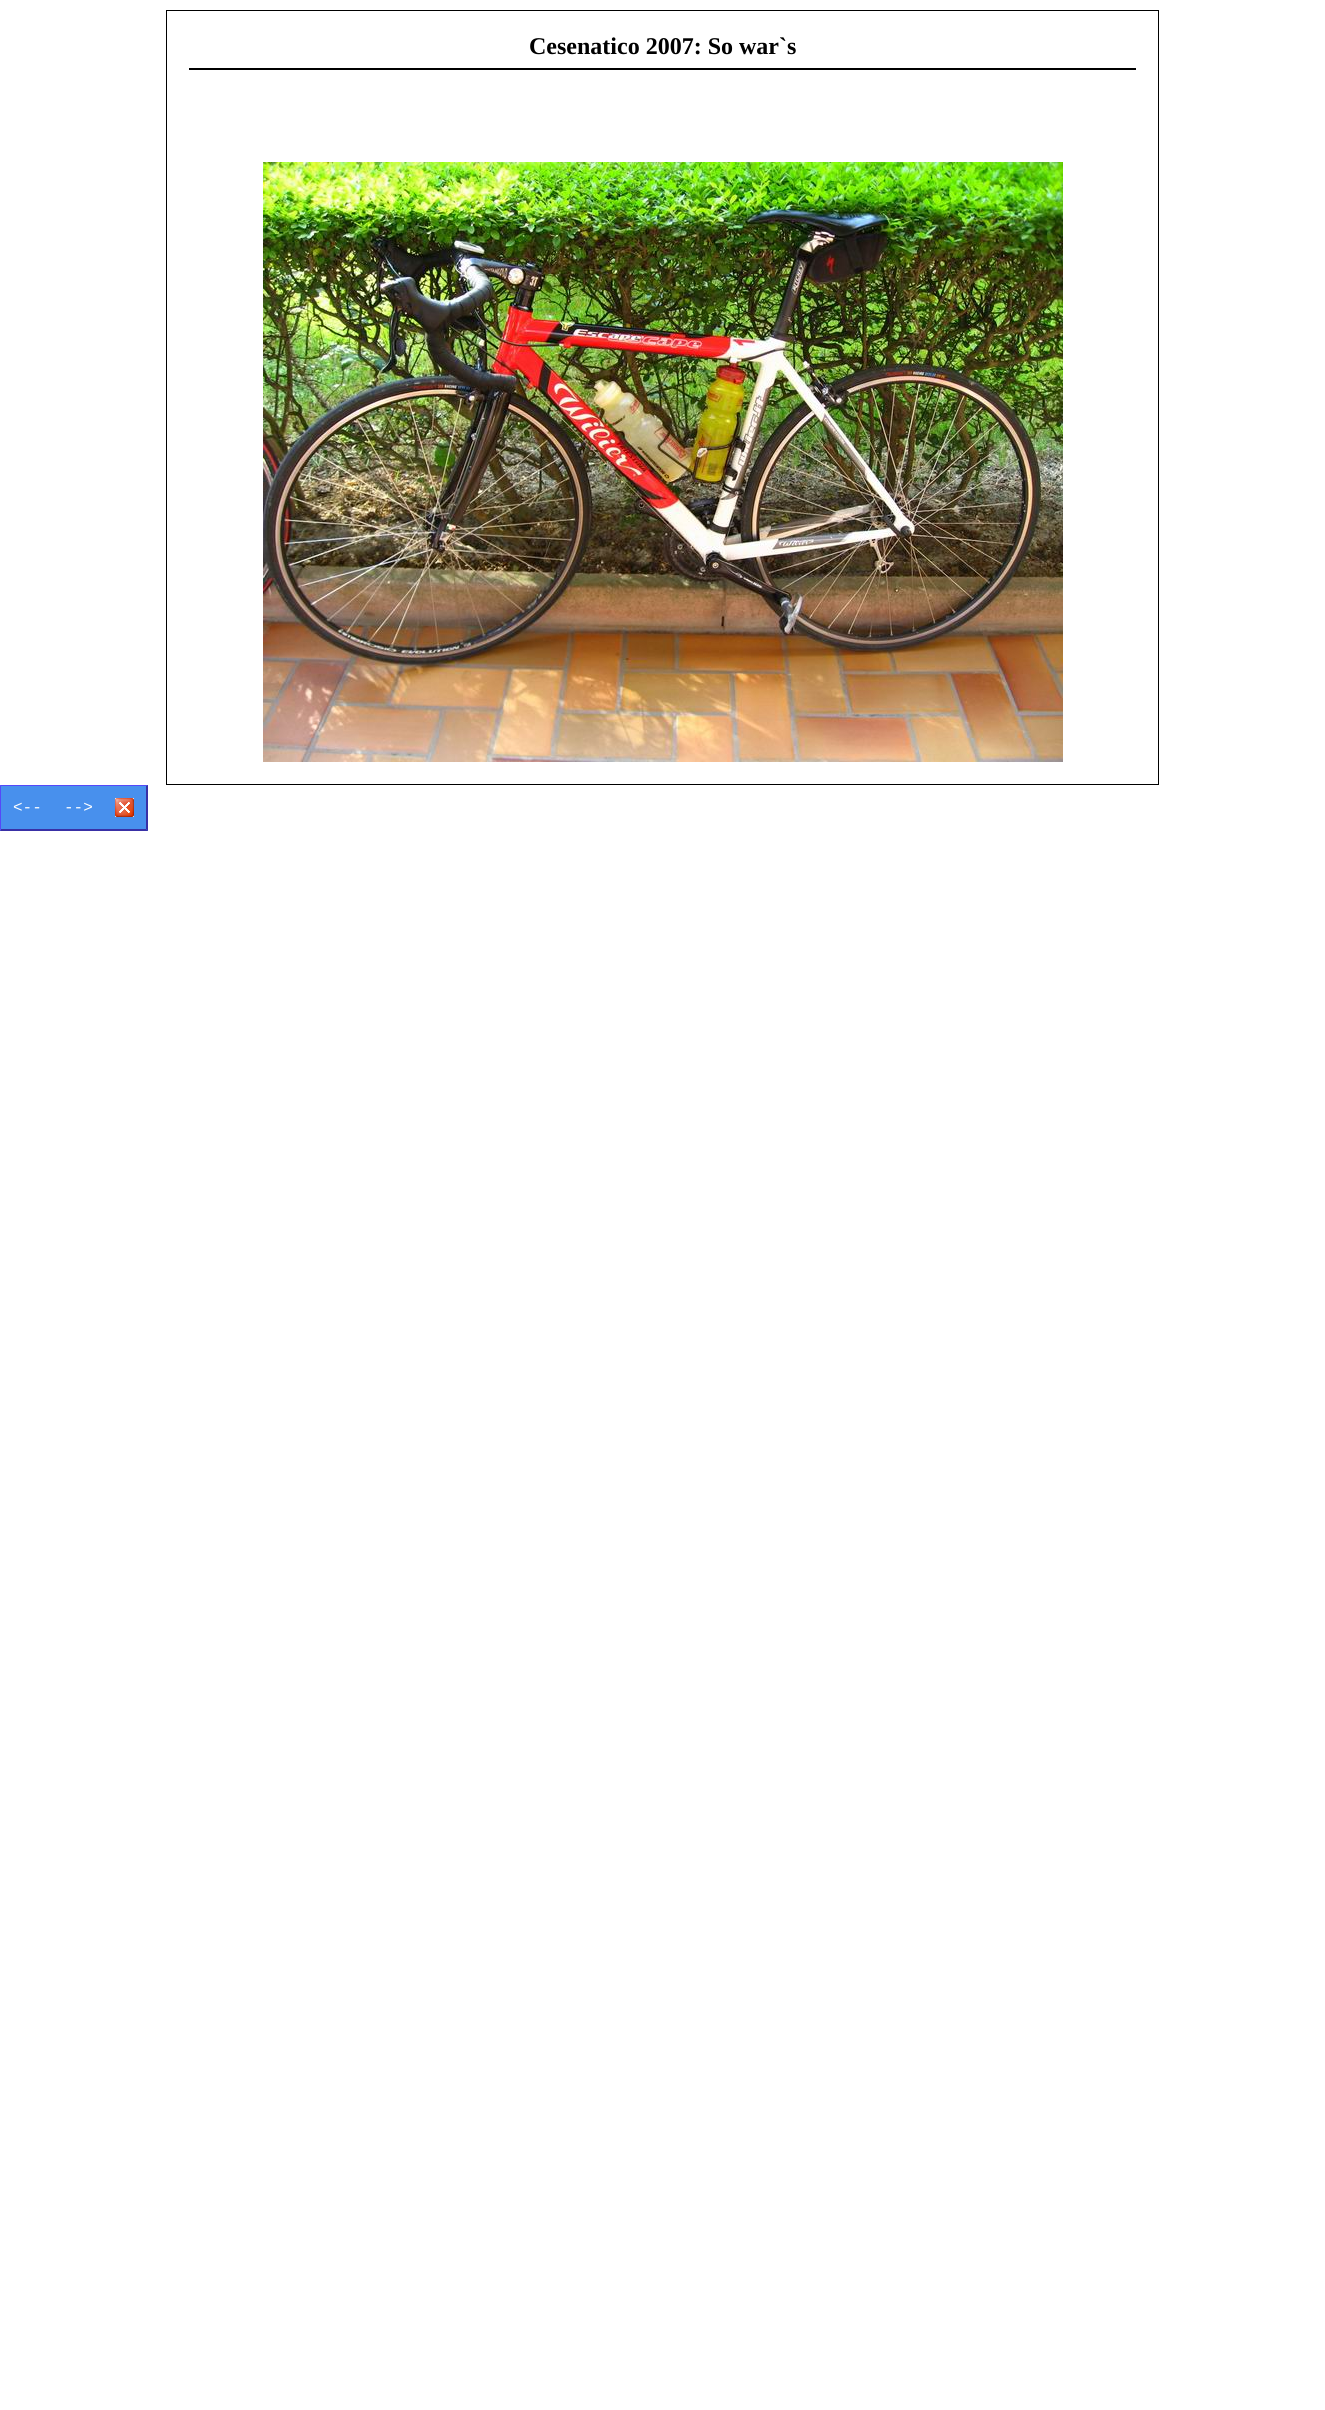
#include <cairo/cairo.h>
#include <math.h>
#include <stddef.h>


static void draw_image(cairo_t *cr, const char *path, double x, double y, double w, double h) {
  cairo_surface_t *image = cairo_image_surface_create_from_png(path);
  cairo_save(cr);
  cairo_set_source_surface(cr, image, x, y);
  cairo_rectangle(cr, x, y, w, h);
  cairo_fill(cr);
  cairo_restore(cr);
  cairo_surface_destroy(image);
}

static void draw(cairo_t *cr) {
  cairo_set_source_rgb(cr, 1, 1, 1);
  cairo_paint(cr);
  cairo_rectangle(cr, 166.5, 10.5, 992, 774);
  cairo_set_source_rgb(cr, 0, 0, 0);
  cairo_set_line_width(cr, 1);
  cairo_stroke(cr);
  cairo_rectangle(cr, 189, 68, 947, 2);
  cairo_fill(cr);
  draw_image(cr, "images/1.png", 263, 162, 800, 600);
  cairo_set_source_rgb(cr, 72 / 255.0, 144 / 255.0, 237 / 255.0);
  cairo_rectangle(cr, 0, 785, 148, 46);
  cairo_fill(cr);
  cairo_set_source_rgb(cr, 85 / 255.0, 72 / 255.0, 249 / 255.0);
  cairo_new_path(cr);
  cairo_move_to(cr, 0, 785);
  cairo_line_to(cr, 148, 785);
  cairo_line_to(cr, 146, 786);
  cairo_line_to(cr, 1, 786);
  cairo_close_path(cr);
  cairo_fill(cr);
  cairo_set_source_rgb(cr, 57 / 255.0, 48 / 255.0, 166 / 255.0);
  cairo_new_path(cr);
  cairo_move_to(cr, 148, 785);
  cairo_line_to(cr, 148, 831);
  cairo_line_to(cr, 146, 829);
  cairo_line_to(cr, 146, 786);
  cairo_close_path(cr);
  cairo_fill(cr);
  cairo_new_path(cr);
  cairo_move_to(cr, 148, 831);
  cairo_line_to(cr, 0, 831);
  cairo_line_to(cr, 1, 829);
  cairo_line_to(cr, 146, 829);
  cairo_close_path(cr);
  cairo_fill(cr);
  cairo_set_source_rgb(cr, 85 / 255.0, 72 / 255.0, 249 / 255.0);
  cairo_new_path(cr);
  cairo_move_to(cr, 0, 831);
  cairo_line_to(cr, 0, 785);
  cairo_line_to(cr, 1, 786);
  cairo_line_to(cr, 1, 829);
  cairo_close_path(cr);
  cairo_fill(cr);
  draw_image(cr, "images/2.png", 115, 798, 19, 19);
  cairo_select_font_face(cr, "Liberation Serif", CAIRO_FONT_SLANT_NORMAL, CAIRO_FONT_WEIGHT_BOLD);
  cairo_set_font_size(cr, 24);
  cairo_set_source_rgb(cr, 0, 0, 0);
  cairo_move_to(cr, 529, 54);
  cairo_show_text(cr, "Cesenatico 2007: So war`s");
  cairo_select_font_face(cr, "Liberation Mono", CAIRO_FONT_SLANT_NORMAL, CAIRO_FONT_WEIGHT_NORMAL);
  cairo_set_font_size(cr, 16);
  cairo_set_source_rgb(cr, 1, 1, 1);
  cairo_move_to(cr, 13, 812);
  cairo_show_text(cr, "<--");
  cairo_move_to(cr, 64, 812);
  cairo_show_text(cr, "-->");
}

int main(void) {
  cairo_surface_t *surface = cairo_image_surface_create(CAIRO_FORMAT_RGB24, 1325, 2410);
  cairo_t *cr = cairo_create(surface);
  cairo_font_options_t *options = cairo_font_options_create();
  cairo_font_options_set_hint_metrics(options, CAIRO_HINT_METRICS_OFF);
  cairo_font_options_set_hint_style(options, CAIRO_HINT_STYLE_NONE);
  cairo_set_font_options(cr, options);
  cairo_set_miter_limit(cr, 4);
  draw(cr);
  cairo_surface_write_to_png(surface, "out.png");
  cairo_font_options_destroy(options);
  cairo_destroy(cr);
  cairo_surface_destroy(surface);
  return 0;
}
